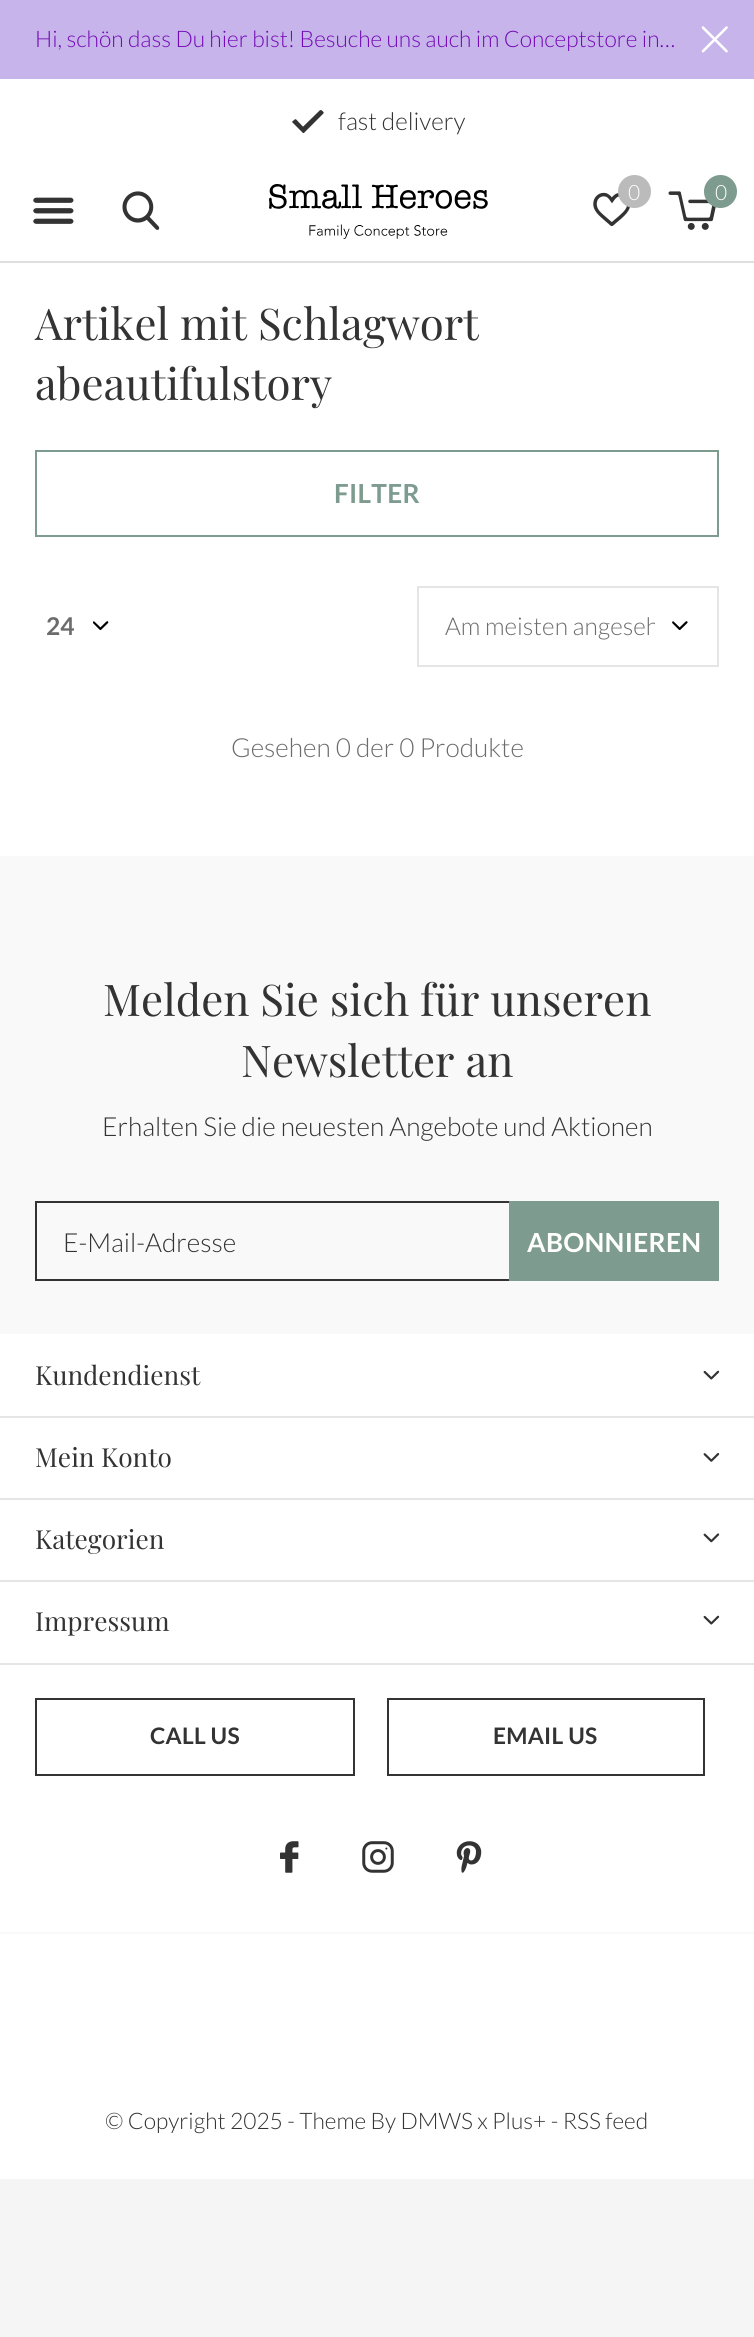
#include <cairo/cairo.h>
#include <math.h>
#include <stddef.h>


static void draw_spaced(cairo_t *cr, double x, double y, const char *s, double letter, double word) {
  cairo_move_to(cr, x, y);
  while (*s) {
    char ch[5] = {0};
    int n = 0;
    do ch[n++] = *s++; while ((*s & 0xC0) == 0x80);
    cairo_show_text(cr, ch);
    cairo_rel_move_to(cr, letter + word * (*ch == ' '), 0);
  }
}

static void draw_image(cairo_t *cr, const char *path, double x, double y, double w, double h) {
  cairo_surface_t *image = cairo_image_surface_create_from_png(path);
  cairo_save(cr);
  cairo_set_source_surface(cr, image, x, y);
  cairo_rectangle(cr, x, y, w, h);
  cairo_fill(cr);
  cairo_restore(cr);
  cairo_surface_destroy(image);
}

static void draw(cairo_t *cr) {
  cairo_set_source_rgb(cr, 245 / 255.0, 245 / 255.0, 245 / 255.0);
  cairo_paint(cr);
  cairo_set_source_rgb(cr, 1, 1, 1);
  cairo_rectangle(cr, 0, 79, 754, 2100);
  cairo_fill(cr);
  cairo_set_source_rgb(cr, 199 / 255.0, 180 / 255.0, 234 / 255.0);
  cairo_rectangle(cr, 0, 0, 754, 79);
  cairo_fill(cr);
  draw_image(cr, "images/1.png", 701, 26, 27, 27);
  draw_image(cr, "images/2.png", 292, 110, 32, 24);
  draw_image(cr, "images/3.png", 269, 184, 219, 55);
  draw_image(cr, "images/4.png", 122, 191, 38, 39);
  draw_image(cr, "images/5.png", 593, 192, 37, 35);
  cairo_set_source_rgb(cr, 187 / 255.0, 187 / 255.0, 187 / 255.0);
  cairo_arc(cr, 634.5, 191.5, 16.5, 0, 2 * M_PI);
  cairo_fill(cr);
  draw_image(cr, "images/6.png", 668, 191, 48, 39);
  cairo_set_source_rgb(cr, 126 / 255.0, 155 / 255.0, 144 / 255.0);
  cairo_arc(cr, 720.5, 191.5, 16.5, 0, 2 * M_PI);
  cairo_fill(cr);
  draw_image(cr, "images/7.png", 33, 197, 41, 27);
  cairo_set_source_rgb(cr, 223 / 255.0, 223 / 255.0, 223 / 255.0);
  cairo_rectangle(cr, 0, 261, 754, 2);
  cairo_fill(cr);
  cairo_rectangle(cr, 36, 451, 682, 85);
  cairo_set_source_rgb(cr, 126 / 255.0, 155 / 255.0, 144 / 255.0);
  cairo_stroke(cr);
  draw_image(cr, "images/8.png", 93, 621, 16, 9);
  draw_image(cr, "images/9.png", 672, 621, 16, 9);
  cairo_rectangle(cr, 418, 587, 300, 79);
  cairo_set_source_rgb(cr, 229 / 255.0, 229 / 255.0, 229 / 255.0);
  cairo_stroke(cr);
  cairo_set_source_rgb(cr, 249 / 255.0, 249 / 255.0, 249 / 255.0);
  cairo_rectangle(cr, 0, 856, 754, 478);
  cairo_fill(cr);
  cairo_rectangle(cr, 36, 1202, 682, 78);
  cairo_set_source_rgb(cr, 51 / 255.0, 51 / 255.0, 51 / 255.0);
  cairo_stroke(cr);
  cairo_set_source_rgb(cr, 126 / 255.0, 155 / 255.0, 144 / 255.0);
  cairo_rectangle(cr, 509, 1201, 210, 80);
  cairo_fill(cr);
  draw_image(cr, "images/10.png", 703, 1370, 17, 10);
  cairo_set_source_rgb(cr, 230 / 255.0, 230 / 255.0, 230 / 255.0);
  cairo_rectangle(cr, 0, 1416, 754, 2);
  cairo_fill(cr);
  draw_image(cr, "images/11.png", 703, 1453, 17, 9);
  cairo_rectangle(cr, 0, 1498, 754, 2);
  cairo_fill(cr);
  draw_image(cr, "images/12.png", 703, 1533, 17, 10);
  cairo_rectangle(cr, 0, 1580, 754, 2);
  cairo_fill(cr);
  draw_image(cr, "images/10.png", 703, 1615, 17, 10);
  cairo_rectangle(cr, 0, 1663, 754, 2);
  cairo_fill(cr);
  cairo_rectangle(cr, 36, 1699, 318, 76);
  cairo_set_source_rgb(cr, 51 / 255.0, 51 / 255.0, 51 / 255.0);
  cairo_stroke(cr);
  cairo_rectangle(cr, 388, 1699, 316, 76);
  cairo_stroke(cr);
  draw_image(cr, "images/13.png", 280, 1841, 19, 32);
  draw_image(cr, "images/14.png", 362, 1841, 32, 32);
  draw_image(cr, "images/15.png", 456, 1841, 26, 32);
  cairo_set_source_rgb(cr, 249 / 255.0, 249 / 255.0, 249 / 255.0);
  cairo_rectangle(cr, 0, 1932, 754, 2);
  cairo_fill(cr);
  cairo_select_font_face(cr, "Lato Light", CAIRO_FONT_SLANT_NORMAL, CAIRO_FONT_WEIGHT_NORMAL);
  cairo_set_font_size(cr, 22.75);
  cairo_set_source_rgb(cr, 116 / 255.0, 10 / 255.0, 182 / 255.0);
  cairo_move_to(cr, 35, 47);
  cairo_show_text(cr, "Hi, schön dass Du hier bist! Besuche uns auch im Conceptstore in…");
  cairo_set_font_size(cr, 24.5);
  cairo_set_source_rgb(cr, 51 / 255.0, 51 / 255.0, 51 / 255.0);
  cairo_move_to(cr, 338, 130);
  cairo_show_text(cr, "fast delivery");
  cairo_set_font_size(cr, 21);
  cairo_set_source_rgb(cr, 1, 1, 1);
  cairo_move_to(cr, 628, 200);
  cairo_show_text(cr, "0");
  cairo_move_to(cr, 715, 200);
  cairo_show_text(cr, "0");
  cairo_select_font_face(cr, "Playfair Display", CAIRO_FONT_SLANT_NORMAL, CAIRO_FONT_WEIGHT_NORMAL);
  cairo_set_font_size(cr, 43.75);
  cairo_set_source_rgb(cr, 51 / 255.0, 51 / 255.0, 51 / 255.0);
  cairo_move_to(cr, 35, 340);
  cairo_show_text(cr, "Artikel mit Schlagwort");
  cairo_move_to(cr, 35, 400);
  cairo_show_text(cr, "abeautifulstory");
  cairo_select_font_face(cr, "Lato", CAIRO_FONT_SLANT_NORMAL, CAIRO_FONT_WEIGHT_BOLD);
  cairo_set_font_size(cr, 26.25);
  cairo_set_source_rgb(cr, 126 / 255.0, 155 / 255.0, 144 / 255.0);
  draw_spaced(cr, 334, 503, "FILTER", 0.25, 0);
  cairo_set_font_size(cr, 24.5);
  cairo_set_source_rgb(cr, 108 / 255.0, 108 / 255.0, 108 / 255.0);
  cairo_move_to(cr, 46, 635);
  cairo_show_text(cr, "24");
  cairo_save(cr);
  cairo_rectangle(cr, 445, 611, 210, 30);
  cairo_clip(cr);
  cairo_select_font_face(cr, "Lato Light", CAIRO_FONT_SLANT_NORMAL, CAIRO_FONT_WEIGHT_NORMAL);
  cairo_move_to(cr, 445, 635);
  cairo_show_text(cr, "Am meisten angeseh");
  cairo_restore(cr);
  cairo_select_font_face(cr, "Lato Light", CAIRO_FONT_SLANT_NORMAL, CAIRO_FONT_WEIGHT_NORMAL);
  cairo_set_font_size(cr, 26.25);
  cairo_move_to(cr, 231, 757);
  cairo_show_text(cr, "Gesehen 0 der 0 Produkte");
  cairo_select_font_face(cr, "Playfair Display", CAIRO_FONT_SLANT_NORMAL, CAIRO_FONT_WEIGHT_NORMAL);
  cairo_set_font_size(cr, 43.75);
  cairo_set_source_rgb(cr, 51 / 255.0, 51 / 255.0, 51 / 255.0);
  cairo_move_to(cr, 103, 1016);
  cairo_show_text(cr, "Melden Sie sich für unseren");
  cairo_move_to(cr, 241, 1077);
  cairo_show_text(cr, "Newsletter an");
  cairo_select_font_face(cr, "Lato Light", CAIRO_FONT_SLANT_NORMAL, CAIRO_FONT_WEIGHT_NORMAL);
  cairo_set_font_size(cr, 26.25);
  cairo_move_to(cr, 102, 1136);
  cairo_show_text(cr, "Erhalten Sie die neuesten Angebote und Aktionen");
  cairo_move_to(cr, 63, 1252);
  cairo_show_text(cr, "E-Mail-Adresse");
  cairo_select_font_face(cr, "Lato", CAIRO_FONT_SLANT_NORMAL, CAIRO_FONT_WEIGHT_BOLD);
  cairo_set_source_rgb(cr, 1, 1, 1);
  draw_spaced(cr, 527, 1252, "ABONNIEREN", 0.25, 0);
  cairo_select_font_face(cr, "Playfair Display", CAIRO_FONT_SLANT_NORMAL, CAIRO_FONT_WEIGHT_NORMAL);
  cairo_set_source_rgb(cr, 51 / 255.0, 51 / 255.0, 51 / 255.0);
  cairo_move_to(cr, 35, 1385);
  cairo_show_text(cr, "Kundendienst");
  cairo_move_to(cr, 35, 1467);
  cairo_show_text(cr, "Mein Konto");
  cairo_move_to(cr, 35, 1549);
  cairo_show_text(cr, "Kategorien");
  cairo_move_to(cr, 35, 1631);
  cairo_show_text(cr, "Impressum");
  cairo_select_font_face(cr, "Lato", CAIRO_FONT_SLANT_NORMAL, CAIRO_FONT_WEIGHT_BOLD);
  cairo_set_font_size(cr, 22.75);
  draw_spaced(cr, 150, 1744, "CALL US", 0.25, 0);
  draw_spaced(cr, 493, 1744, "EMAIL US", 0.25, 0);
  cairo_select_font_face(cr, "Lato Light", CAIRO_FONT_SLANT_NORMAL, CAIRO_FONT_WEIGHT_NORMAL);
  cairo_move_to(cr, 105, 2129);
  cairo_show_text(cr, "© Copyright 2025 - Theme By DMWS x Plus+ - RSS feed");
}

int main(void) {
  cairo_surface_t *surface = cairo_image_surface_create(CAIRO_FORMAT_RGB24, 754, 2337);
  cairo_t *cr = cairo_create(surface);
  cairo_font_options_t *options = cairo_font_options_create();
  cairo_font_options_set_hint_metrics(options, CAIRO_HINT_METRICS_OFF);
  cairo_font_options_set_hint_style(options, CAIRO_HINT_STYLE_NONE);
  cairo_set_font_options(cr, options);
  cairo_set_miter_limit(cr, 4);
  draw(cr);
  cairo_surface_write_to_png(surface, "out.png");
  cairo_font_options_destroy(options);
  cairo_destroy(cr);
  cairo_surface_destroy(surface);
  return 0;
}
